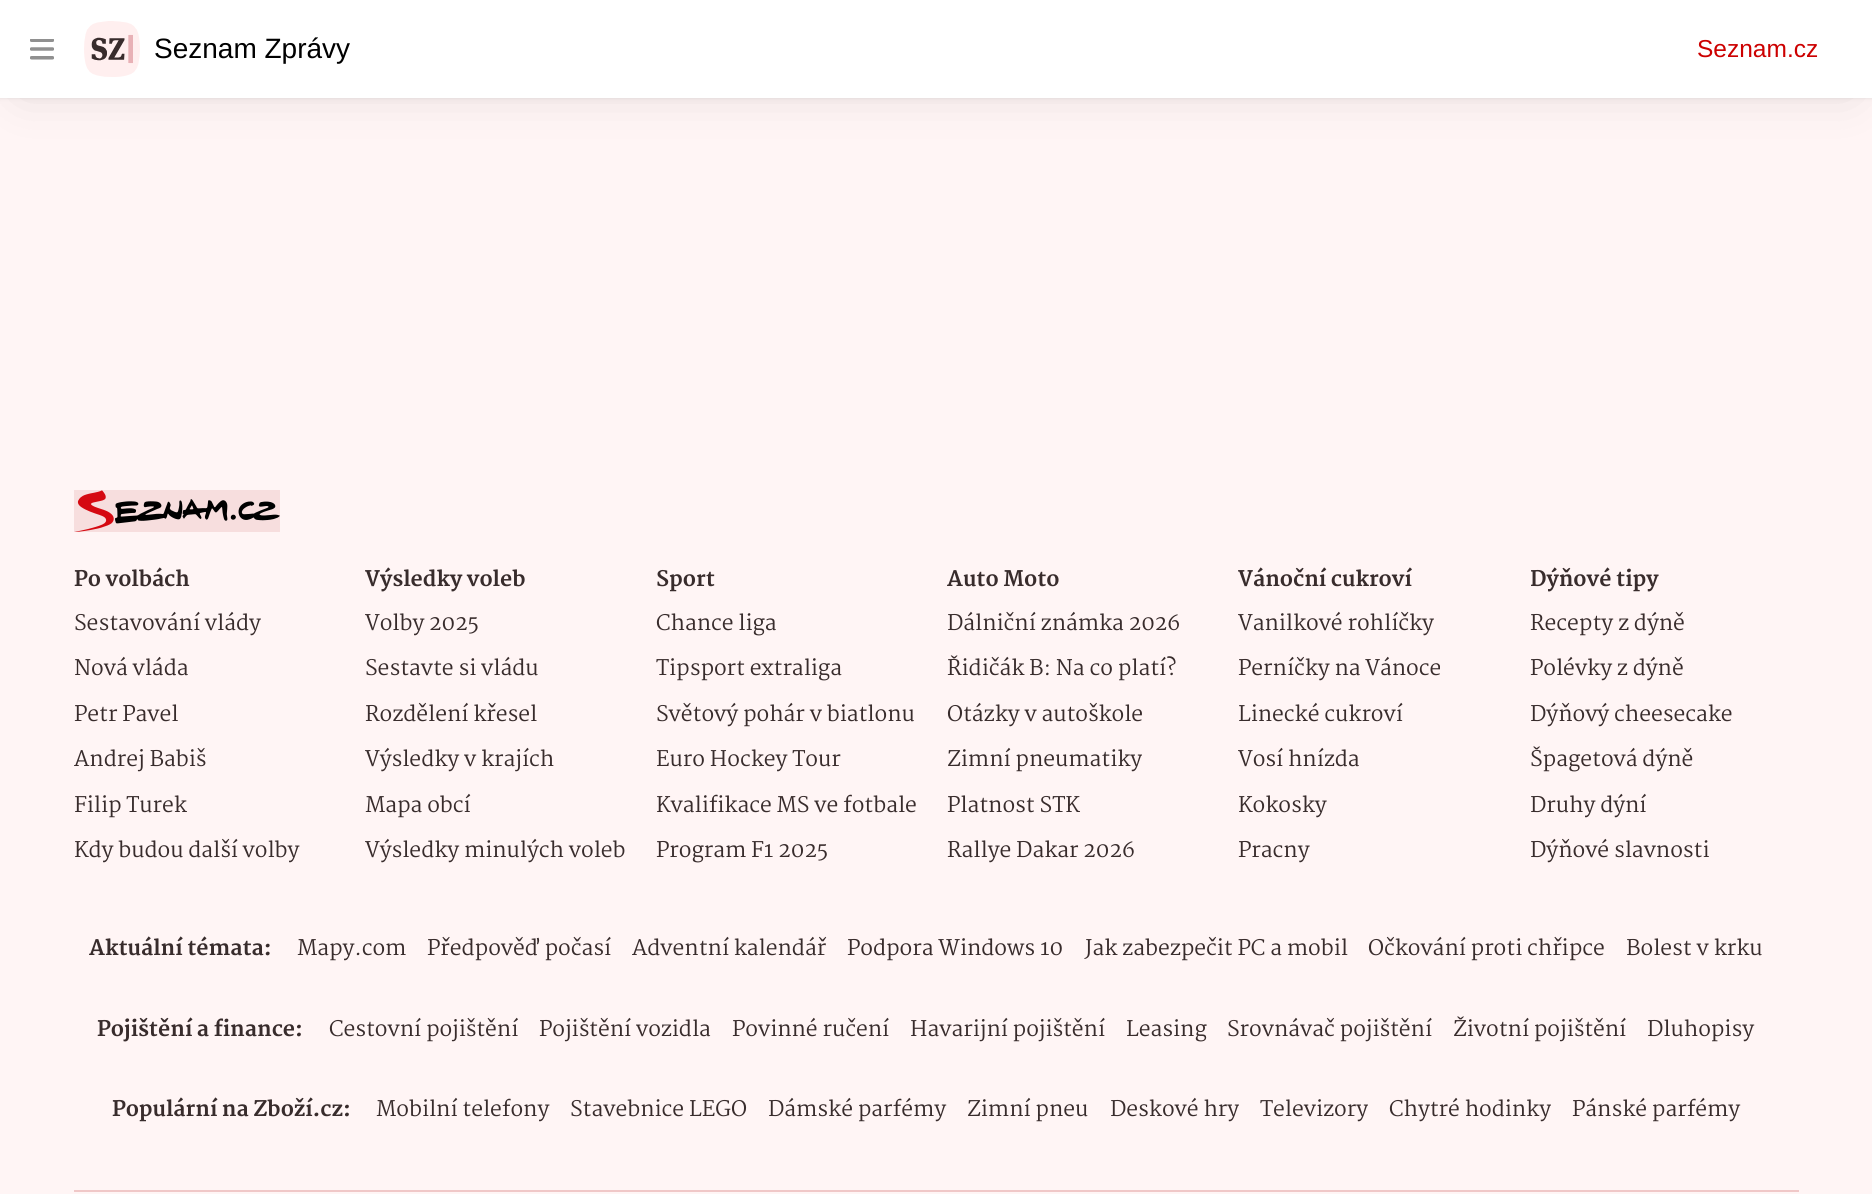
#include <cairo/cairo.h>
#include <math.h>
#include <stddef.h>


static void rounded_rect(cairo_t *cr, double x, double y, double w, double h, double r) {
  cairo_new_sub_path(cr);
  cairo_arc(cr, x + w - r, y + h - r, r, 0, M_PI / 2);
  cairo_arc(cr, x + r, y + h - r, r, M_PI / 2, M_PI);
  cairo_arc(cr, x + r, y + r, r, M_PI, 1.5 * M_PI);
  cairo_arc(cr, x + w - r, y + r, r, 1.5 * M_PI, 2 * M_PI);
  cairo_close_path(cr);
}

static void draw_shadow(cairo_t *cr, double x, double y, double w, double h, double r, double blur, double alpha) {
  cairo_push_group_with_content(cr, CAIRO_CONTENT_ALPHA);
  cairo_set_operator(cr, CAIRO_OPERATOR_SOURCE);
  for (int i = 15; i >= -15 && fmin(w, h) + blur * i / 3 > 0; i -= 2) {
    double e = blur * i / 6;
    cairo_set_source_rgba(cr, 0, 0, 0, alpha * erfc((i - 1) / 8.5) / 2);
    rounded_rect(cr, x - e, y - e, w + 2 * e, h + 2 * e, fmax(0, fmin(r + e + blur * .6, fmin(w, h) / 2 + e)));
    cairo_fill(cr);
  }
  cairo_pattern_t *soft = cairo_pop_group(cr);
  cairo_mask(cr, soft);
  cairo_pattern_destroy(soft);
}

static void draw_image(cairo_t *cr, const char *path, double x, double y, double w, double h) {
  cairo_surface_t *image = cairo_image_surface_create_from_png(path);
  cairo_save(cr);
  cairo_set_source_surface(cr, image, x, y);
  cairo_rectangle(cr, x, y, w, h);
  cairo_fill(cr);
  cairo_restore(cr);
  cairo_surface_destroy(image);
}

static void draw(cairo_t *cr) {
  cairo_set_source_rgb(cr, 1, 245 / 255.0, 245 / 255.0);
  cairo_paint(cr);
  cairo_set_source_rgb(cr, 0, 0, 0);
  draw_shadow(cr, 21, 35, 1831, 56, 0, 26, 0.12);
  draw_shadow(cr, 0, 0, 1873, 98, 0, 2, 0.1);
  cairo_set_source_rgb(cr, 1, 1, 1);
  cairo_rectangle(cr, 0, 0, 1872, 98);
  cairo_fill(cr);
  draw_image(cr, "images/1.png", 30, 39, 24, 21);
  draw_image(cr, "images/2.png", 84, 21, 56, 56);
  cairo_set_source_rgb(cr, 240 / 255.0, 200 / 255.0, 200 / 255.0);
  cairo_rectangle(cr, 74, 1190, 1725, 2);
  cairo_fill(cr);
  cairo_set_source_rgb(cr, 247 / 255.0, 222 / 255.0, 222 / 255.0);
  cairo_rectangle(cr, 74, 490, 206, 42);
  cairo_fill(cr);
  draw_image(cr, "images/3.png", 74, 490, 206, 42);
  cairo_select_font_face(cr, "Liberation Sans", CAIRO_FONT_SLANT_NORMAL, CAIRO_FONT_WEIGHT_NORMAL);
  cairo_set_font_size(cr, 28);
  cairo_set_source_rgb(cr, 0, 0, 0);
  cairo_move_to(cr, 154, 58);
  cairo_show_text(cr, "Seznam Zprávy");
  cairo_set_font_size(cr, 24.5);
  cairo_set_source_rgb(cr, 204 / 255.0, 0, 0);
  cairo_move_to(cr, 1697, 57);
  cairo_show_text(cr, "Seznam.cz");
  cairo_select_font_face(cr, "Martel ExtraBold", CAIRO_FONT_SLANT_NORMAL, CAIRO_FONT_WEIGHT_NORMAL);
  cairo_set_font_size(cr, 21);
  cairo_set_source_rgb(cr, 56 / 255.0, 44 / 255.0, 44 / 255.0);
  cairo_move_to(cr, 74, 586);
  cairo_show_text(cr, "Po volbách");
  cairo_select_font_face(cr, "Martel", CAIRO_FONT_SLANT_NORMAL, CAIRO_FONT_WEIGHT_NORMAL);
  cairo_move_to(cr, 74, 630);
  cairo_show_text(cr, "Sestavování vlády");
  cairo_move_to(cr, 74, 675);
  cairo_show_text(cr, "Nová vláda");
  cairo_move_to(cr, 74, 721);
  cairo_show_text(cr, "Petr Pavel");
  cairo_move_to(cr, 74, 766);
  cairo_show_text(cr, "Andrej Babiš");
  cairo_move_to(cr, 74, 812);
  cairo_show_text(cr, "Filip Turek");
  cairo_move_to(cr, 74, 857);
  cairo_show_text(cr, "Kdy budou další volby");
  cairo_select_font_face(cr, "Martel ExtraBold", CAIRO_FONT_SLANT_NORMAL, CAIRO_FONT_WEIGHT_NORMAL);
  cairo_move_to(cr, 365, 586);
  cairo_show_text(cr, "Výsledky voleb");
  cairo_select_font_face(cr, "Martel", CAIRO_FONT_SLANT_NORMAL, CAIRO_FONT_WEIGHT_NORMAL);
  cairo_move_to(cr, 365, 630);
  cairo_show_text(cr, "Volby 2025");
  cairo_move_to(cr, 365, 675);
  cairo_show_text(cr, "Sestavte si vládu");
  cairo_move_to(cr, 365, 721);
  cairo_show_text(cr, "Rozdělení křesel");
  cairo_move_to(cr, 365, 766);
  cairo_show_text(cr, "Výsledky v krajích");
  cairo_move_to(cr, 365, 812);
  cairo_show_text(cr, "Mapa obcí");
  cairo_move_to(cr, 365, 857);
  cairo_show_text(cr, "Výsledky minulých voleb");
  cairo_select_font_face(cr, "Martel ExtraBold", CAIRO_FONT_SLANT_NORMAL, CAIRO_FONT_WEIGHT_NORMAL);
  cairo_move_to(cr, 656, 586);
  cairo_show_text(cr, "Sport");
  cairo_select_font_face(cr, "Martel", CAIRO_FONT_SLANT_NORMAL, CAIRO_FONT_WEIGHT_NORMAL);
  cairo_move_to(cr, 656, 630);
  cairo_show_text(cr, "Chance liga");
  cairo_move_to(cr, 656, 675);
  cairo_show_text(cr, "Tipsport extraliga");
  cairo_move_to(cr, 656, 721);
  cairo_show_text(cr, "Světový pohár v biatlonu");
  cairo_move_to(cr, 656, 766);
  cairo_show_text(cr, "Euro Hockey Tour");
  cairo_move_to(cr, 656, 812);
  cairo_show_text(cr, "Kvalifikace MS ve fotbale");
  cairo_move_to(cr, 656, 857);
  cairo_show_text(cr, "Program F1 2025");
  cairo_select_font_face(cr, "Martel ExtraBold", CAIRO_FONT_SLANT_NORMAL, CAIRO_FONT_WEIGHT_NORMAL);
  cairo_move_to(cr, 947, 586);
  cairo_show_text(cr, "Auto Moto");
  cairo_select_font_face(cr, "Martel", CAIRO_FONT_SLANT_NORMAL, CAIRO_FONT_WEIGHT_NORMAL);
  cairo_move_to(cr, 947, 630);
  cairo_show_text(cr, "Dálniční známka 2026");
  cairo_move_to(cr, 947, 675);
  cairo_show_text(cr, "Řidičák B: Na co platí?");
  cairo_move_to(cr, 947, 721);
  cairo_show_text(cr, "Otázky v autoškole");
  cairo_move_to(cr, 947, 766);
  cairo_show_text(cr, "Zimní pneumatiky");
  cairo_move_to(cr, 947, 812);
  cairo_show_text(cr, "Platnost STK");
  cairo_move_to(cr, 947, 857);
  cairo_show_text(cr, "Rallye Dakar 2026");
  cairo_select_font_face(cr, "Martel ExtraBold", CAIRO_FONT_SLANT_NORMAL, CAIRO_FONT_WEIGHT_NORMAL);
  cairo_move_to(cr, 1238, 586);
  cairo_show_text(cr, "Vánoční cukroví");
  cairo_select_font_face(cr, "Martel", CAIRO_FONT_SLANT_NORMAL, CAIRO_FONT_WEIGHT_NORMAL);
  cairo_move_to(cr, 1238, 630);
  cairo_show_text(cr, "Vanilkové rohlíčky");
  cairo_move_to(cr, 1238, 675);
  cairo_show_text(cr, "Perníčky na Vánoce");
  cairo_move_to(cr, 1238, 721);
  cairo_show_text(cr, "Linecké cukroví");
  cairo_move_to(cr, 1238, 766);
  cairo_show_text(cr, "Vosí hnízda");
  cairo_move_to(cr, 1238, 812);
  cairo_show_text(cr, "Kokosky");
  cairo_move_to(cr, 1238, 857);
  cairo_show_text(cr, "Pracny");
  cairo_select_font_face(cr, "Martel ExtraBold", CAIRO_FONT_SLANT_NORMAL, CAIRO_FONT_WEIGHT_NORMAL);
  cairo_move_to(cr, 1530, 586);
  cairo_show_text(cr, "Dýňové tipy");
  cairo_select_font_face(cr, "Martel", CAIRO_FONT_SLANT_NORMAL, CAIRO_FONT_WEIGHT_NORMAL);
  cairo_move_to(cr, 1530, 630);
  cairo_show_text(cr, "Recepty z dýně");
  cairo_move_to(cr, 1530, 675);
  cairo_show_text(cr, "Polévky z dýně");
  cairo_move_to(cr, 1530, 721);
  cairo_show_text(cr, "Dýňový cheesecake");
  cairo_move_to(cr, 1530, 766);
  cairo_show_text(cr, "Špagetová dýně");
  cairo_move_to(cr, 1530, 812);
  cairo_show_text(cr, "Druhy dýní");
  cairo_move_to(cr, 1530, 857);
  cairo_show_text(cr, "Dýňové slavnosti");
  cairo_select_font_face(cr, "Martel ExtraBold", CAIRO_FONT_SLANT_NORMAL, CAIRO_FONT_WEIGHT_NORMAL);
  cairo_move_to(cr, 89, 955);
  cairo_show_text(cr, "Aktuální témata:");
  cairo_select_font_face(cr, "Martel", CAIRO_FONT_SLANT_NORMAL, CAIRO_FONT_WEIGHT_NORMAL);
  cairo_move_to(cr, 297, 955);
  cairo_show_text(cr, "Mapy.com");
  cairo_move_to(cr, 427, 955);
  cairo_show_text(cr, "Předpověď počasí");
  cairo_move_to(cr, 632, 955);
  cairo_show_text(cr, "Adventní kalendář");
  cairo_move_to(cr, 847, 955);
  cairo_show_text(cr, "Podpora Windows 10");
  cairo_move_to(cr, 1085, 955);
  cairo_show_text(cr, "Jak zabezpečit PC a mobil");
  cairo_move_to(cr, 1368, 955);
  cairo_show_text(cr, "Očkování proti chřipce");
  cairo_move_to(cr, 1626, 955);
  cairo_show_text(cr, "Bolest v krku");
  cairo_select_font_face(cr, "Martel ExtraBold", CAIRO_FONT_SLANT_NORMAL, CAIRO_FONT_WEIGHT_NORMAL);
  cairo_move_to(cr, 97, 1036);
  cairo_show_text(cr, "Pojištění a finance:");
  cairo_select_font_face(cr, "Martel", CAIRO_FONT_SLANT_NORMAL, CAIRO_FONT_WEIGHT_NORMAL);
  cairo_move_to(cr, 329, 1036);
  cairo_show_text(cr, "Cestovní pojištění");
  cairo_move_to(cr, 539, 1036);
  cairo_show_text(cr, "Pojištění vozidla");
  cairo_move_to(cr, 732, 1036);
  cairo_show_text(cr, "Povinné ručení");
  cairo_move_to(cr, 910, 1036);
  cairo_show_text(cr, "Havarijní pojištění");
  cairo_move_to(cr, 1126, 1036);
  cairo_show_text(cr, "Leasing");
  cairo_move_to(cr, 1227, 1036);
  cairo_show_text(cr, "Srovnávač pojištění");
  cairo_move_to(cr, 1453, 1036);
  cairo_show_text(cr, "Životní pojištění");
  cairo_move_to(cr, 1647, 1036);
  cairo_show_text(cr, "Dluhopisy");
  cairo_select_font_face(cr, "Martel ExtraBold", CAIRO_FONT_SLANT_NORMAL, CAIRO_FONT_WEIGHT_NORMAL);
  cairo_move_to(cr, 112, 1116);
  cairo_show_text(cr, "Populární na Zboží.cz:");
  cairo_select_font_face(cr, "Martel", CAIRO_FONT_SLANT_NORMAL, CAIRO_FONT_WEIGHT_NORMAL);
  cairo_move_to(cr, 376, 1116);
  cairo_show_text(cr, "Mobilní telefony");
  cairo_move_to(cr, 570, 1116);
  cairo_show_text(cr, "Stavebnice LEGO");
  cairo_move_to(cr, 768, 1116);
  cairo_show_text(cr, "Dámské parfémy");
  cairo_move_to(cr, 967, 1116);
  cairo_show_text(cr, "Zimní pneu");
  cairo_move_to(cr, 1110, 1116);
  cairo_show_text(cr, "Deskové hry");
  cairo_move_to(cr, 1260, 1116);
  cairo_show_text(cr, "Televizory");
  cairo_move_to(cr, 1389, 1116);
  cairo_show_text(cr, "Chytré hodinky");
  cairo_move_to(cr, 1572, 1116);
  cairo_show_text(cr, "Pánské parfémy");
}

int main(void) {
  cairo_surface_t *surface = cairo_image_surface_create(CAIRO_FORMAT_RGB24, 1872, 1194);
  cairo_t *cr = cairo_create(surface);
  cairo_font_options_t *options = cairo_font_options_create();
  cairo_font_options_set_hint_metrics(options, CAIRO_HINT_METRICS_OFF);
  cairo_font_options_set_hint_style(options, CAIRO_HINT_STYLE_NONE);
  cairo_set_font_options(cr, options);
  cairo_set_miter_limit(cr, 4);
  draw(cr);
  cairo_surface_write_to_png(surface, "out.png");
  cairo_font_options_destroy(options);
  cairo_destroy(cr);
  cairo_surface_destroy(surface);
  return 0;
}
